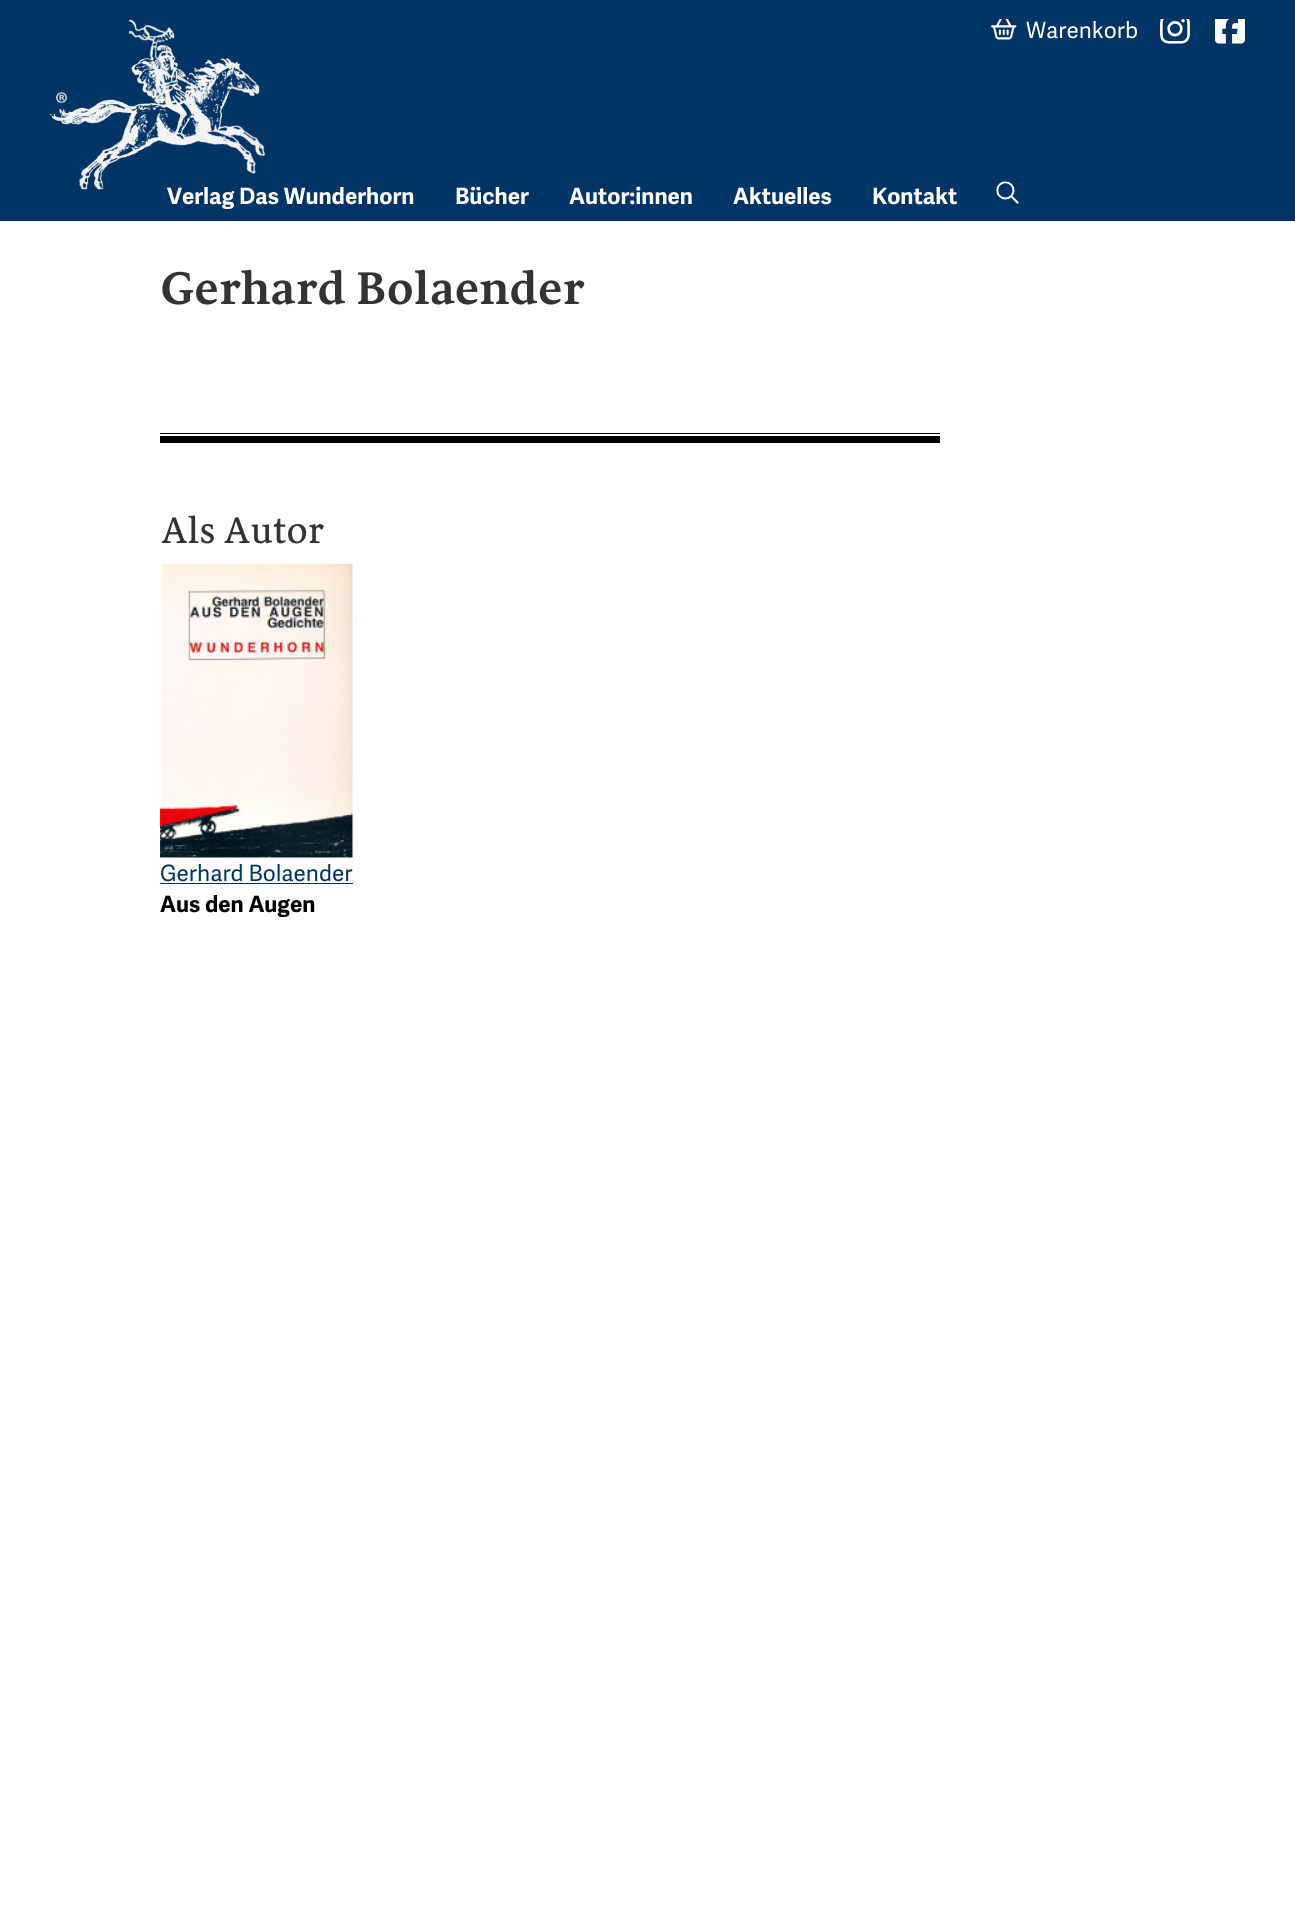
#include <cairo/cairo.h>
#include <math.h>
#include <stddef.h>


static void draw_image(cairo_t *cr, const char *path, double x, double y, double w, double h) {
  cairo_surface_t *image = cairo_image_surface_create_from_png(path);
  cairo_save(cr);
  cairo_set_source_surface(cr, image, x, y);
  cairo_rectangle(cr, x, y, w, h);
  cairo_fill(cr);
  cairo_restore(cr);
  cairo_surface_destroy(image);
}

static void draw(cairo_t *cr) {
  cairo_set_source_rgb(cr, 1, 1, 1);
  cairo_paint(cr);
  cairo_set_source_rgb(cr, 0, 51 / 255.0, 102 / 255.0);
  cairo_rectangle(cr, 0, 0, 1295, 221);
  cairo_fill(cr);
  draw_image(cr, "images/1.png", 50, 19, 219, 171);
  draw_image(cr, "images/2.png", 991, 19, 26, 21);
  draw_image(cr, "images/3.png", 1160, 19, 30, 25);
  draw_image(cr, "images/4.png", 1215, 19, 30, 25);
  draw_image(cr, "images/5.png", 996, 181, 23, 23);
  cairo_set_source_rgb(cr, 0, 0, 0);
  cairo_rectangle(cr, 160, 433, 780, 1);
  cairo_fill(cr);
  cairo_rectangle(cr, 160, 436, 780, 7);
  cairo_fill(cr);
  draw_image(cr, "images/6.png", 160, 563, 193, 295);
  cairo_set_source_rgb(cr, 0, 51 / 255.0, 102 / 255.0);
  cairo_rectangle(cr, 160, 883, 193, 1);
  cairo_fill(cr);
  cairo_select_font_face(cr, "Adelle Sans", CAIRO_FONT_SLANT_NORMAL, CAIRO_FONT_WEIGHT_NORMAL);
  cairo_set_font_size(cr, 22.5);
  cairo_set_source_rgb(cr, 1, 1, 1);
  cairo_move_to(cr, 1026, 38);
  cairo_show_text(cr, "Warenkorb");
  cairo_select_font_face(cr, "Adelle Sans", CAIRO_FONT_SLANT_NORMAL, CAIRO_FONT_WEIGHT_BOLD);
  cairo_move_to(cr, 167, 204);
  cairo_show_text(cr, "Verlag Das Wunderhorn");
  cairo_move_to(cr, 455, 204);
  cairo_show_text(cr, "Bücher");
  cairo_move_to(cr, 569, 204);
  cairo_show_text(cr, "Autor:innen");
  cairo_move_to(cr, 733, 204);
  cairo_show_text(cr, "Aktuelles");
  cairo_move_to(cr, 872, 204);
  cairo_show_text(cr, "Kontakt");
  cairo_select_font_face(cr, "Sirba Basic", CAIRO_FONT_SLANT_NORMAL, CAIRO_FONT_WEIGHT_BOLD);
  cairo_set_font_size(cr, 47);
  cairo_set_source_rgb(cr, 51 / 255.0, 51 / 255.0, 51 / 255.0);
  cairo_move_to(cr, 160, 304);
  cairo_show_text(cr, "Gerhard Bolaender");
  cairo_select_font_face(cr, "Sirba Basic", CAIRO_FONT_SLANT_NORMAL, CAIRO_FONT_WEIGHT_NORMAL);
  cairo_set_font_size(cr, 38);
  cairo_move_to(cr, 160, 543);
  cairo_show_text(cr, "Als Autor");
  cairo_select_font_face(cr, "Adelle Sans", CAIRO_FONT_SLANT_NORMAL, CAIRO_FONT_WEIGHT_NORMAL);
  cairo_set_font_size(cr, 22.5);
  cairo_set_source_rgb(cr, 0, 51 / 255.0, 102 / 255.0);
  cairo_move_to(cr, 160, 881);
  cairo_show_text(cr, "Gerhard Bolaender");
  cairo_select_font_face(cr, "Adelle Sans", CAIRO_FONT_SLANT_NORMAL, CAIRO_FONT_WEIGHT_BOLD);
  cairo_set_source_rgb(cr, 0, 0, 0);
  cairo_move_to(cr, 160, 912);
  cairo_show_text(cr, "Aus den Augen");
}

int main(void) {
  cairo_surface_t *surface = cairo_image_surface_create(CAIRO_FORMAT_RGB24, 1295, 1917);
  cairo_t *cr = cairo_create(surface);
  cairo_font_options_t *options = cairo_font_options_create();
  cairo_font_options_set_hint_metrics(options, CAIRO_HINT_METRICS_OFF);
  cairo_font_options_set_hint_style(options, CAIRO_HINT_STYLE_NONE);
  cairo_set_font_options(cr, options);
  cairo_set_miter_limit(cr, 4);
  draw(cr);
  cairo_surface_write_to_png(surface, "out.png");
  cairo_font_options_destroy(options);
  cairo_destroy(cr);
  cairo_surface_destroy(surface);
  return 0;
}
